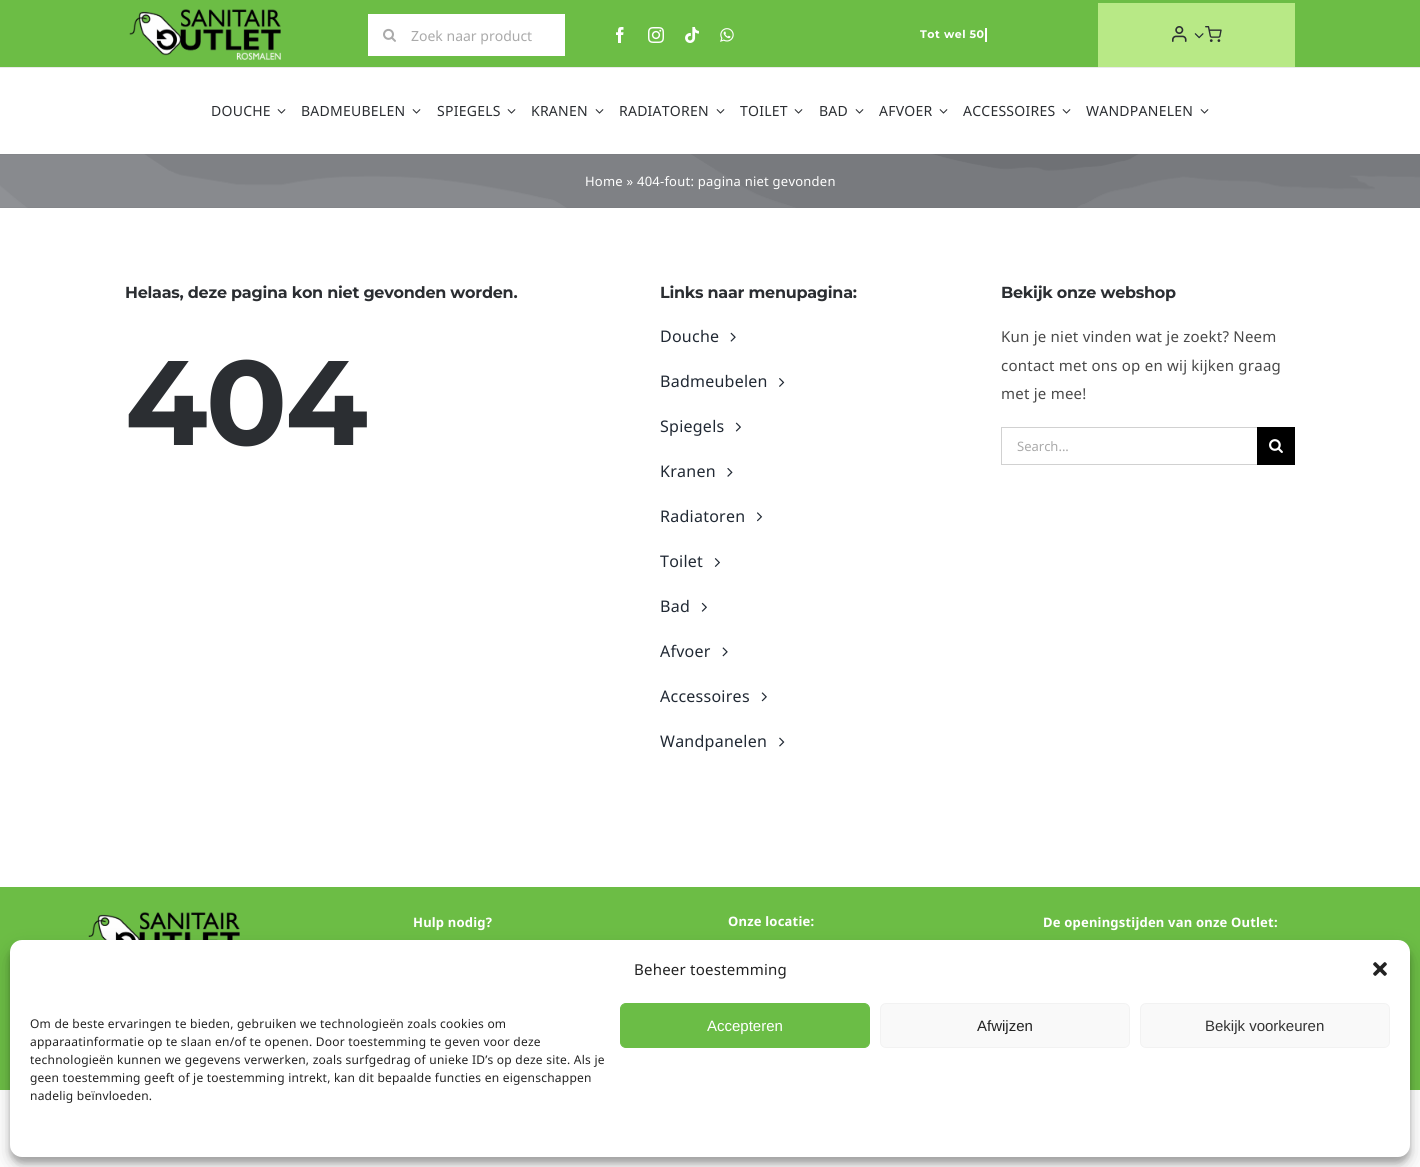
#include <cairo/cairo.h>
#include <math.h>
#include <stddef.h>


static void draw_spaced(cairo_t *cr, double x, double y, const char *s, double letter, double word) {
  cairo_move_to(cr, x, y);
  while (*s) {
    char ch[5] = {0};
    int n = 0;
    do ch[n++] = *s++; while ((*s & 0xC0) == 0x80);
    cairo_show_text(cr, ch);
    cairo_rel_move_to(cr, letter + word * (*ch == ' '), 0);
  }
}

static void rounded_rect(cairo_t *cr, double x, double y, double w, double h, double r) {
  cairo_new_sub_path(cr);
  cairo_arc(cr, x + w - r, y + h - r, r, 0, M_PI / 2);
  cairo_arc(cr, x + r, y + h - r, r, M_PI / 2, M_PI);
  cairo_arc(cr, x + r, y + r, r, M_PI, 1.5 * M_PI);
  cairo_arc(cr, x + w - r, y + r, r, 1.5 * M_PI, 2 * M_PI);
  cairo_close_path(cr);
}

static void draw_shadow(cairo_t *cr, double x, double y, double w, double h, double r, double blur, double alpha) {
  cairo_push_group_with_content(cr, CAIRO_CONTENT_ALPHA);
  cairo_set_operator(cr, CAIRO_OPERATOR_SOURCE);
  for (int i = 15; i >= -15 && fmin(w, h) + blur * i / 3 > 0; i -= 2) {
    double e = blur * i / 6;
    cairo_set_source_rgba(cr, 0, 0, 0, alpha * erfc((i - 1) / 8.5) / 2);
    rounded_rect(cr, x - e, y - e, w + 2 * e, h + 2 * e, fmax(0, fmin(r + e + blur * .6, fmin(w, h) / 2 + e)));
    cairo_fill(cr);
  }
  cairo_pattern_t *soft = cairo_pop_group(cr);
  cairo_mask(cr, soft);
  cairo_pattern_destroy(soft);
}

static void draw_image(cairo_t *cr, const char *path, double x, double y, double w, double h) {
  cairo_surface_t *image = cairo_image_surface_create_from_png(path);
  cairo_save(cr);
  cairo_set_source_surface(cr, image, x, y);
  cairo_rectangle(cr, x, y, w, h);
  cairo_fill(cr);
  cairo_restore(cr);
  cairo_surface_destroy(image);
}

static void draw(cairo_t *cr) {
  cairo_set_source_rgb(cr, 1, 1, 1);
  cairo_paint(cr);
  cairo_set_source_rgb(cr, 108 / 255.0, 189 / 255.0, 69 / 255.0);
  cairo_rectangle(cr, 0, 0, 1420, 67);
  cairo_fill(cr);
  draw_image(cr, "images/1.png", 129, 9, 152, 51);
  cairo_set_source_rgb(cr, 1, 1, 1);
  cairo_rectangle(cr, 368, 14, 197, 42);
  cairo_fill(cr);
  draw_image(cr, "images/2.png", 383, 28, 13, 14);
  draw_image(cr, "images/3.png", 616, 27, 8, 16);
  draw_image(cr, "images/4.png", 648, 27, 16, 16);
  draw_image(cr, "images/5.png", 685, 27, 14, 16);
  draw_image(cr, "images/6.png", 720, 28, 14, 14);
  cairo_rectangle(cr, 985, 28, 2, 14);
  cairo_fill(cr);
  cairo_set_source_rgb(cr, 184 / 255.0, 233 / 255.0, 134 / 255.0);
  cairo_rectangle(cr, 1098, 3, 197, 64);
  cairo_fill(cr);
  draw_image(cr, "images/7.png", 1172, 26, 15, 16);
  draw_image(cr, "images/8.png", 1194, 33, 10, 6);
  draw_image(cr, "images/9.png", 1205, 26, 17, 16);
  cairo_set_source_rgb(cr, 234 / 255.0, 234 / 255.0, 234 / 255.0);
  cairo_rectangle(cr, 0, 67, 1420, 1);
  cairo_fill(cr);
  draw_image(cr, "images/10.png", 277, 109, 9, 5);
  draw_image(cr, "images/10.png", 412, 109, 9, 5);
  draw_image(cr, "images/10.png", 507, 109, 9, 5);
  draw_image(cr, "images/10.png", 595, 109, 9, 5);
  draw_image(cr, "images/10.png", 716, 109, 9, 5);
  draw_image(cr, "images/10.png", 794, 109, 9, 5);
  draw_image(cr, "images/10.png", 855, 109, 9, 5);
  draw_image(cr, "images/10.png", 939, 109, 9, 5);
  draw_image(cr, "images/10.png", 1062, 109, 9, 5);
  draw_image(cr, "images/10.png", 1200, 109, 9, 5);
  draw_image(cr, "images/11.png", 0, 154, 1420, 54);
  draw_image(cr, "images/12.png", 730, 332, 6, 10);
  draw_image(cr, "images/13.png", 779, 378, 6, 9);
  draw_image(cr, "images/14.png", 735, 422, 6, 10);
  draw_image(cr, "images/15.png", 727, 468, 6, 9);
  draw_image(cr, "images/16.png", 757, 512, 6, 10);
  draw_image(cr, "images/17.png", 714, 558, 6, 9);
  draw_image(cr, "images/18.png", 701, 602, 6, 10);
  draw_image(cr, "images/19.png", 722, 647, 6, 10);
  draw_image(cr, "images/20.png", 761, 692, 6, 10);
  draw_image(cr, "images/21.png", 779, 737, 6, 10);
  cairo_set_source_rgb(cr, 209 / 255.0, 209 / 255.0, 209 / 255.0);
  cairo_rectangle(cr, 1001, 427, 256, 1);
  cairo_fill(cr);
  cairo_rectangle(cr, 1001, 464, 256, 1);
  cairo_fill(cr);
  cairo_rectangle(cr, 1001, 427, 1, 38);
  cairo_fill(cr);
  cairo_set_source_rgb(cr, 0, 0, 0);
  cairo_rectangle(cr, 1257, 427, 38, 38);
  cairo_fill(cr);
  draw_image(cr, "images/22.png", 1269, 439, 14, 14);
  cairo_set_source_rgb(cr, 108 / 255.0, 189 / 255.0, 69 / 255.0);
  cairo_rectangle(cr, 0, 887, 1420, 203);
  cairo_fill(cr);
  draw_image(cr, "images/23.png", 88, 912, 152, 28);
  cairo_set_source_rgb(cr, 0, 0, 0);
  draw_shadow(cr, 10, 946, 1400, 217, 12, 3, 0.23);
  draw_shadow(cr, 10, 950, 1400, 217, 12, 10, 0.19);
  cairo_set_source_rgb(cr, 1, 1, 1);
  rounded_rect(cr, 10, 940, 1400, 217, 12);
  cairo_fill(cr);
  draw_image(cr, "images/24.png", 1373, 962, 14, 14);
  cairo_set_source_rgb(cr, 107 / 255.0, 189 / 255.0, 70 / 255.0);
  rounded_rect(cr, 620.5, 1003.5, 249, 44, 5.5);
  cairo_fill_preserve(cr);
  cairo_set_line_width(cr, 1);
  cairo_stroke(cr);
  cairo_set_source_rgb(cr, 249 / 255.0, 249 / 255.0, 249 / 255.0);
  rounded_rect(cr, 880.5, 1003.5, 249, 44, 5.5);
  cairo_fill_preserve(cr);
  cairo_set_source_rgb(cr, 242 / 255.0, 242 / 255.0, 242 / 255.0);
  cairo_stroke(cr);
  cairo_set_source_rgb(cr, 249 / 255.0, 249 / 255.0, 249 / 255.0);
  rounded_rect(cr, 1140.5, 1003.5, 249, 44, 5.5);
  cairo_fill_preserve(cr);
  cairo_set_source_rgb(cr, 242 / 255.0, 242 / 255.0, 242 / 255.0);
  cairo_stroke(cr);
  cairo_select_font_face(cr, "Noto Sans", CAIRO_FONT_SLANT_NORMAL, CAIRO_FONT_WEIGHT_NORMAL);
  cairo_set_font_size(cr, 14);
  cairo_set_source_rgb(cr, 170 / 255.0, 170 / 255.0, 170 / 255.0);
  cairo_move_to(cr, 411, 41);
  cairo_show_text(cr, "Zoek naar product");
  cairo_select_font_face(cr, "Montserrat Thin", CAIRO_FONT_SLANT_NORMAL, CAIRO_FONT_WEIGHT_NORMAL);
  cairo_set_font_size(cr, 11);
  cairo_set_source_rgb(cr, 1, 1, 1);
  draw_spaced(cr, 920, 38, "Tot wel 50", 0.5, 0);
  cairo_select_font_face(cr, "Noto Sans", CAIRO_FONT_SLANT_NORMAL, CAIRO_FONT_WEIGHT_NORMAL);
  cairo_set_font_size(cr, 14);
  cairo_set_source_rgb(cr, 43 / 255.0, 46 / 255.0, 50 / 255.0);
  draw_spaced(cr, 211, 116, "DOUCHE", 0.25, 0);
  draw_spaced(cr, 301, 116, "BADMEUBELEN", 0.25, 0);
  draw_spaced(cr, 437, 116, "SPIEGELS", 0.25, 0);
  draw_spaced(cr, 531, 116, "KRANEN", 0.25, 0);
  draw_spaced(cr, 619, 116, "RADIATOREN", 0.25, 0);
  draw_spaced(cr, 740, 116, "TOILET", 0.25, 0);
  draw_spaced(cr, 819, 116, "BAD", 0.25, 0);
  draw_spaced(cr, 879, 116, "AFVOER", 0.25, 0);
  draw_spaced(cr, 963, 116, "ACCESSOIRES", 0.25, 0);
  draw_spaced(cr, 1086, 116, "WANDPANELEN", 0.25, 0);
  cairo_set_font_size(cr, 13);
  cairo_set_source_rgb(cr, 1, 1, 1);
  draw_spaced(cr, 585, 186, "Home » 404-fout: pagina niet gevonden", 0.23, 0);
  cairo_select_font_face(cr, "Montserrat Thin", CAIRO_FONT_SLANT_NORMAL, CAIRO_FONT_WEIGHT_NORMAL);
  cairo_set_font_size(cr, 16);
  cairo_set_source_rgb(cr, 43 / 255.0, 46 / 255.0, 50 / 255.0);
  draw_spaced(cr, 125, 298, "Helaas, deze pagina kon niet gevonden worden.", -0.25, 0);
  cairo_set_font_size(cr, 120);
  draw_spaced(cr, 125, 445, "404", -2, 0);
  cairo_set_font_size(cr, 16);
  draw_spaced(cr, 660, 298, "Links naar menupagina:", -0.25, 0);
  cairo_select_font_face(cr, "Noto Sans", CAIRO_FONT_SLANT_NORMAL, CAIRO_FONT_WEIGHT_NORMAL);
  cairo_set_source_rgb(cr, 33 / 255.0, 41 / 255.0, 52 / 255.0);
  draw_spaced(cr, 660, 342, "Douche", 0.25, 0);
  draw_spaced(cr, 660, 387, "Badmeubelen", 0.25, 0);
  draw_spaced(cr, 660, 432, "Spiegels", 0.25, 0);
  draw_spaced(cr, 660, 477, "Kranen", 0.25, 0);
  draw_spaced(cr, 660, 522, "Radiatoren", 0.25, 0);
  draw_spaced(cr, 660, 567, "Toilet", 0.25, 0);
  draw_spaced(cr, 660, 612, "Bad", 0.25, 0);
  draw_spaced(cr, 660, 657, "Afvoer", 0.25, 0);
  draw_spaced(cr, 660, 702, "Accessoires", 0.25, 0);
  draw_spaced(cr, 660, 747, "Wandpanelen", 0.25, 0);
  cairo_select_font_face(cr, "Montserrat Thin", CAIRO_FONT_SLANT_NORMAL, CAIRO_FONT_WEIGHT_NORMAL);
  cairo_set_source_rgb(cr, 43 / 255.0, 46 / 255.0, 50 / 255.0);
  draw_spaced(cr, 1001, 298, "Bekijk onze webshop", -0.25, 0);
  cairo_select_font_face(cr, "Noto Sans", CAIRO_FONT_SLANT_NORMAL, CAIRO_FONT_WEIGHT_NORMAL);
  cairo_set_font_size(cr, 15);
  cairo_set_source_rgb(cr, 73 / 255.0, 73 / 255.0, 73 / 255.0);
  draw_spaced(cr, 1001, 342, "Kun je niet vinden wat je zoekt? Neem", 0.23, 0);
  draw_spaced(cr, 1001, 371, "contact met ons op en wij kijken graag", 0.23, 0);
  draw_spaced(cr, 1001, 399, "met je mee!", 0.23, 0);
  cairo_set_font_size(cr, 13);
  cairo_set_source_rgb(cr, 170 / 255.0, 170 / 255.0, 170 / 255.0);
  cairo_move_to(cr, 1017, 451);
  cairo_show_text(cr, "Search...");
  cairo_select_font_face(cr, "Noto Sans", CAIRO_FONT_SLANT_NORMAL, CAIRO_FONT_WEIGHT_BOLD);
  cairo_set_source_rgb(cr, 1, 1, 1);
  draw_spaced(cr, 413, 927, "Hulp nodig?", 0.2, 0);
  draw_spaced(cr, 728, 926, "Onze locatie:", 0.2, 0);
  draw_spaced(cr, 1043, 927, "De openingstijden van onze Outlet:", 0.2, 0);
  cairo_select_font_face(cr, "Noto Sans", CAIRO_FONT_SLANT_NORMAL, CAIRO_FONT_WEIGHT_NORMAL);
  cairo_set_font_size(cr, 15);
  cairo_set_source_rgb(cr, 34 / 255.0, 34 / 255.0, 34 / 255.0);
  draw_spaced(cr, 634, 975, "Beheer toestemming", 0.23, 0);
  cairo_set_font_size(cr, 12);
  draw_spaced(cr, 30, 1028, "Om de beste ervaringen te bieden, gebruiken we technologieën zoals cookies om", 0.23, 0);
  draw_spaced(cr, 30, 1046, "apparaatinformatie op te slaan en/of te openen. Door toestemming te geven voor deze", 0.23, 0);
  draw_spaced(cr, 30, 1064, "technologieën kunnen we gegevens verwerken, zoals surfgedrag of unieke ID’s op deze site. Als je", 0.23, 0);
  draw_spaced(cr, 30, 1082, "geen toestemming geeft of je toestemming intrekt, kan dit bepaalde functies en eigenschappen", 0.23, 0);
  draw_spaced(cr, 30, 1100, "nadelig beïnvloeden.", 0.23, 0);
  cairo_select_font_face(cr, "Liberation Sans", CAIRO_FONT_SLANT_NORMAL, CAIRO_FONT_WEIGHT_NORMAL);
  cairo_set_font_size(cr, 15);
  cairo_set_source_rgb(cr, 1, 1, 1);
  cairo_move_to(cr, 707, 1031);
  cairo_show_text(cr, "Accepteren");
  cairo_set_source_rgb(cr, 34 / 255.0, 34 / 255.0, 34 / 255.0);
  cairo_move_to(cr, 977, 1031);
  cairo_show_text(cr, "Afwijzen");
  cairo_set_source_rgb(cr, 51 / 255.0, 51 / 255.0, 51 / 255.0);
  cairo_move_to(cr, 1205, 1031);
  cairo_show_text(cr, "Bekijk voorkeuren");
}

int main(void) {
  cairo_surface_t *surface = cairo_image_surface_create(CAIRO_FORMAT_RGB24, 1420, 1167);
  cairo_t *cr = cairo_create(surface);
  cairo_font_options_t *options = cairo_font_options_create();
  cairo_font_options_set_hint_metrics(options, CAIRO_HINT_METRICS_OFF);
  cairo_font_options_set_hint_style(options, CAIRO_HINT_STYLE_NONE);
  cairo_set_font_options(cr, options);
  cairo_set_miter_limit(cr, 4);
  draw(cr);
  cairo_surface_write_to_png(surface, "out.png");
  cairo_font_options_destroy(options);
  cairo_destroy(cr);
  cairo_surface_destroy(surface);
  return 0;
}
